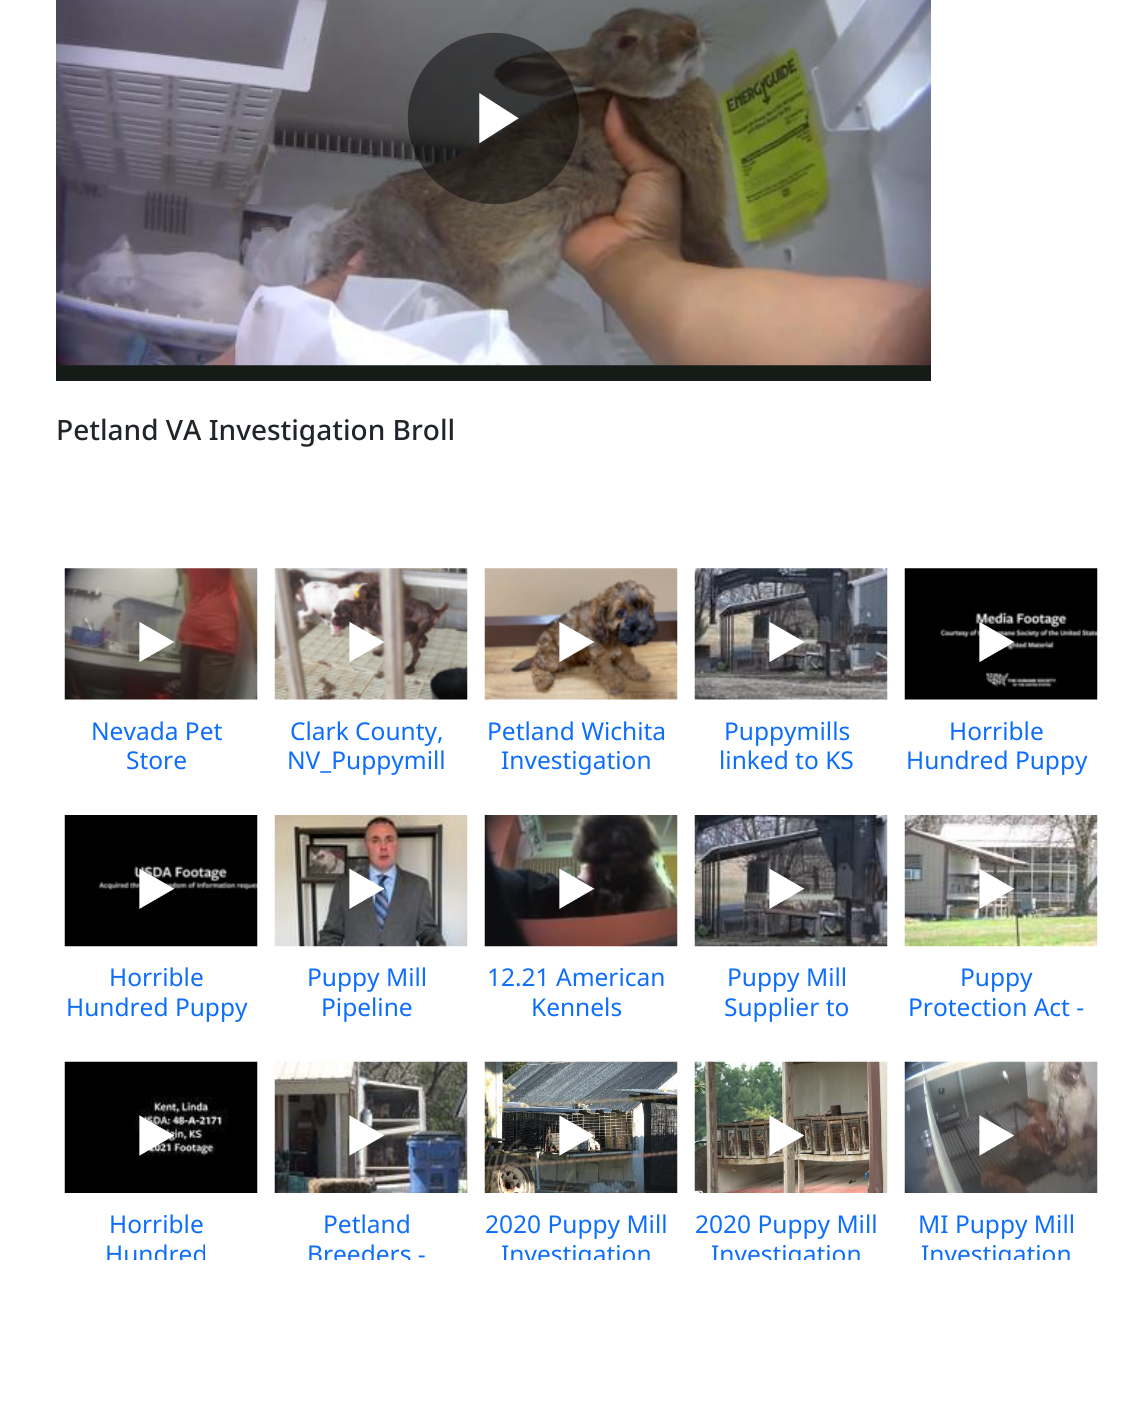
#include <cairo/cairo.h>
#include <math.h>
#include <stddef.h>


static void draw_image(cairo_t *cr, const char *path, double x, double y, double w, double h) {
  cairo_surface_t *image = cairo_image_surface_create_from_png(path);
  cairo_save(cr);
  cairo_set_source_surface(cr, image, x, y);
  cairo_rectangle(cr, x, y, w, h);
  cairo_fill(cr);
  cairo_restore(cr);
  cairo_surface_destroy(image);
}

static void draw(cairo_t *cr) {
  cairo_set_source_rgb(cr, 1, 1, 1);
  cairo_paint(cr);
  draw_image(cr, "images/1.png", 56, 0, 875, 381);
  draw_image(cr, "images/2.png", 64, 568, 194, 132);
  draw_image(cr, "images/3.png", 139, 621, 36, 41);
  draw_image(cr, "images/4.png", 274, 568, 194, 132);
  draw_image(cr, "images/5.png", 349, 621, 36, 41);
  draw_image(cr, "images/6.png", 484, 568, 194, 132);
  draw_image(cr, "images/7.png", 559, 621, 36, 41);
  draw_image(cr, "images/8.png", 694, 568, 194, 132);
  draw_image(cr, "images/9.png", 769, 621, 36, 41);
  draw_image(cr, "images/10.png", 904, 568, 194, 132);
  draw_image(cr, "images/11.png", 979, 621, 36, 41);
  draw_image(cr, "images/12.png", 64, 815, 194, 132);
  draw_image(cr, "images/13.png", 139, 868, 36, 41);
  draw_image(cr, "images/14.png", 274, 815, 194, 132);
  draw_image(cr, "images/15.png", 349, 868, 36, 41);
  draw_image(cr, "images/16.png", 484, 815, 194, 132);
  draw_image(cr, "images/17.png", 559, 868, 36, 41);
  draw_image(cr, "images/18.png", 694, 815, 194, 132);
  draw_image(cr, "images/19.png", 769, 868, 36, 41);
  draw_image(cr, "images/20.png", 904, 815, 194, 132);
  draw_image(cr, "images/21.png", 979, 868, 36, 41);
  draw_image(cr, "images/22.png", 64, 1061, 194, 132);
  draw_image(cr, "images/23.png", 139, 1115, 36, 41);
  draw_image(cr, "images/24.png", 274, 1061, 194, 132);
  draw_image(cr, "images/25.png", 349, 1115, 36, 41);
  draw_image(cr, "images/26.png", 484, 1061, 194, 132);
  draw_image(cr, "images/27.png", 559, 1115, 36, 41);
  draw_image(cr, "images/28.png", 694, 1061, 194, 132);
  draw_image(cr, "images/29.png", 769, 1115, 36, 41);
  draw_image(cr, "images/30.png", 904, 1061, 194, 132);
  draw_image(cr, "images/31.png", 979, 1115, 36, 41);
  cairo_select_font_face(cr, "Noto Sans Medium", CAIRO_FONT_SLANT_NORMAL, CAIRO_FONT_WEIGHT_NORMAL);
  cairo_set_font_size(cr, 28);
  cairo_set_source_rgb(cr, 33 / 255.0, 37 / 255.0, 41 / 255.0);
  cairo_move_to(cr, 56, 440);
  cairo_show_text(cr, "Petland VA Investigation Broll");
  cairo_select_font_face(cr, "Noto Sans", CAIRO_FONT_SLANT_NORMAL, CAIRO_FONT_WEIGHT_NORMAL);
  cairo_set_font_size(cr, 24.5);
  cairo_set_source_rgb(cr, 13 / 255.0, 110 / 255.0, 253 / 255.0);
  cairo_move_to(cr, 91, 740);
  cairo_show_text(cr, "Nevada Pet");
  cairo_move_to(cr, 126, 769);
  cairo_show_text(cr, "Store");
  cairo_move_to(cr, 290, 740);
  cairo_show_text(cr, "Clark County,");
  cairo_move_to(cr, 287, 769);
  cairo_show_text(cr, "NV_Puppymill");
  cairo_move_to(cr, 487, 740);
  cairo_show_text(cr, "Petland Wichita");
  cairo_move_to(cr, 501, 769);
  cairo_show_text(cr, "Investigation");
  cairo_move_to(cr, 724, 740);
  cairo_show_text(cr, "Puppymills");
  cairo_move_to(cr, 719, 769);
  cairo_show_text(cr, "linked to KS");
  cairo_move_to(cr, 949, 740);
  cairo_show_text(cr, "Horrible");
  cairo_move_to(cr, 906, 769);
  cairo_show_text(cr, "Hundred Puppy");
  cairo_move_to(cr, 109, 986);
  cairo_show_text(cr, "Horrible");
  cairo_move_to(cr, 66, 1016);
  cairo_show_text(cr, "Hundred Puppy");
  cairo_move_to(cr, 307, 986);
  cairo_show_text(cr, "Puppy Mill");
  cairo_move_to(cr, 321, 1016);
  cairo_show_text(cr, "Pipeline");
  cairo_move_to(cr, 487, 986);
  cairo_show_text(cr, "12.21 American");
  cairo_move_to(cr, 531, 1016);
  cairo_show_text(cr, "Kennels");
  cairo_move_to(cr, 727, 986);
  cairo_show_text(cr, "Puppy Mill");
  cairo_move_to(cr, 724, 1016);
  cairo_show_text(cr, "Supplier to");
  cairo_move_to(cr, 960, 986);
  cairo_show_text(cr, "Puppy");
  cairo_move_to(cr, 908, 1016);
  cairo_show_text(cr, "Protection Act -");
  cairo_move_to(cr, 109, 1233);
  cairo_show_text(cr, "Horrible");
  cairo_save(cr);
  cairo_rectangle(cr, 65, 1209, 184, 51);
  cairo_clip(cr);
  cairo_move_to(cr, 105, 1263);
  cairo_show_text(cr, "Hundred");
  cairo_restore(cr);
  cairo_move_to(cr, 323, 1233);
  cairo_show_text(cr, "Petland");
  cairo_save(cr);
  cairo_rectangle(cr, 275, 1209, 184, 51);
  cairo_clip(cr);
  cairo_move_to(cr, 307, 1263);
  cairo_show_text(cr, "Breeders -");
  cairo_restore(cr);
  cairo_move_to(cr, 485, 1233);
  cairo_show_text(cr, "2020 Puppy Mill");
  cairo_save(cr);
  cairo_rectangle(cr, 485, 1209, 184, 51);
  cairo_clip(cr);
  cairo_move_to(cr, 501, 1263);
  cairo_show_text(cr, "Investigation");
  cairo_restore(cr);
  cairo_move_to(cr, 695, 1233);
  cairo_show_text(cr, "2020 Puppy Mill");
  cairo_save(cr);
  cairo_rectangle(cr, 695, 1209, 184, 51);
  cairo_clip(cr);
  cairo_move_to(cr, 711, 1263);
  cairo_show_text(cr, "Investigation");
  cairo_restore(cr);
  cairo_move_to(cr, 918, 1233);
  cairo_show_text(cr, "MI Puppy Mill");
  cairo_save(cr);
  cairo_rectangle(cr, 905, 1209, 184, 51);
  cairo_clip(cr);
  cairo_move_to(cr, 921, 1263);
  cairo_show_text(cr, "Investigation");
  cairo_restore(cr);
}

int main(void) {
  cairo_surface_t *surface = cairo_image_surface_create(CAIRO_FORMAT_RGB24, 1128, 1427);
  cairo_t *cr = cairo_create(surface);
  cairo_font_options_t *options = cairo_font_options_create();
  cairo_font_options_set_hint_metrics(options, CAIRO_HINT_METRICS_OFF);
  cairo_font_options_set_hint_style(options, CAIRO_HINT_STYLE_NONE);
  cairo_set_font_options(cr, options);
  cairo_set_miter_limit(cr, 4);
  draw(cr);
  cairo_surface_write_to_png(surface, "out.png");
  cairo_font_options_destroy(options);
  cairo_destroy(cr);
  cairo_surface_destroy(surface);
  return 0;
}
